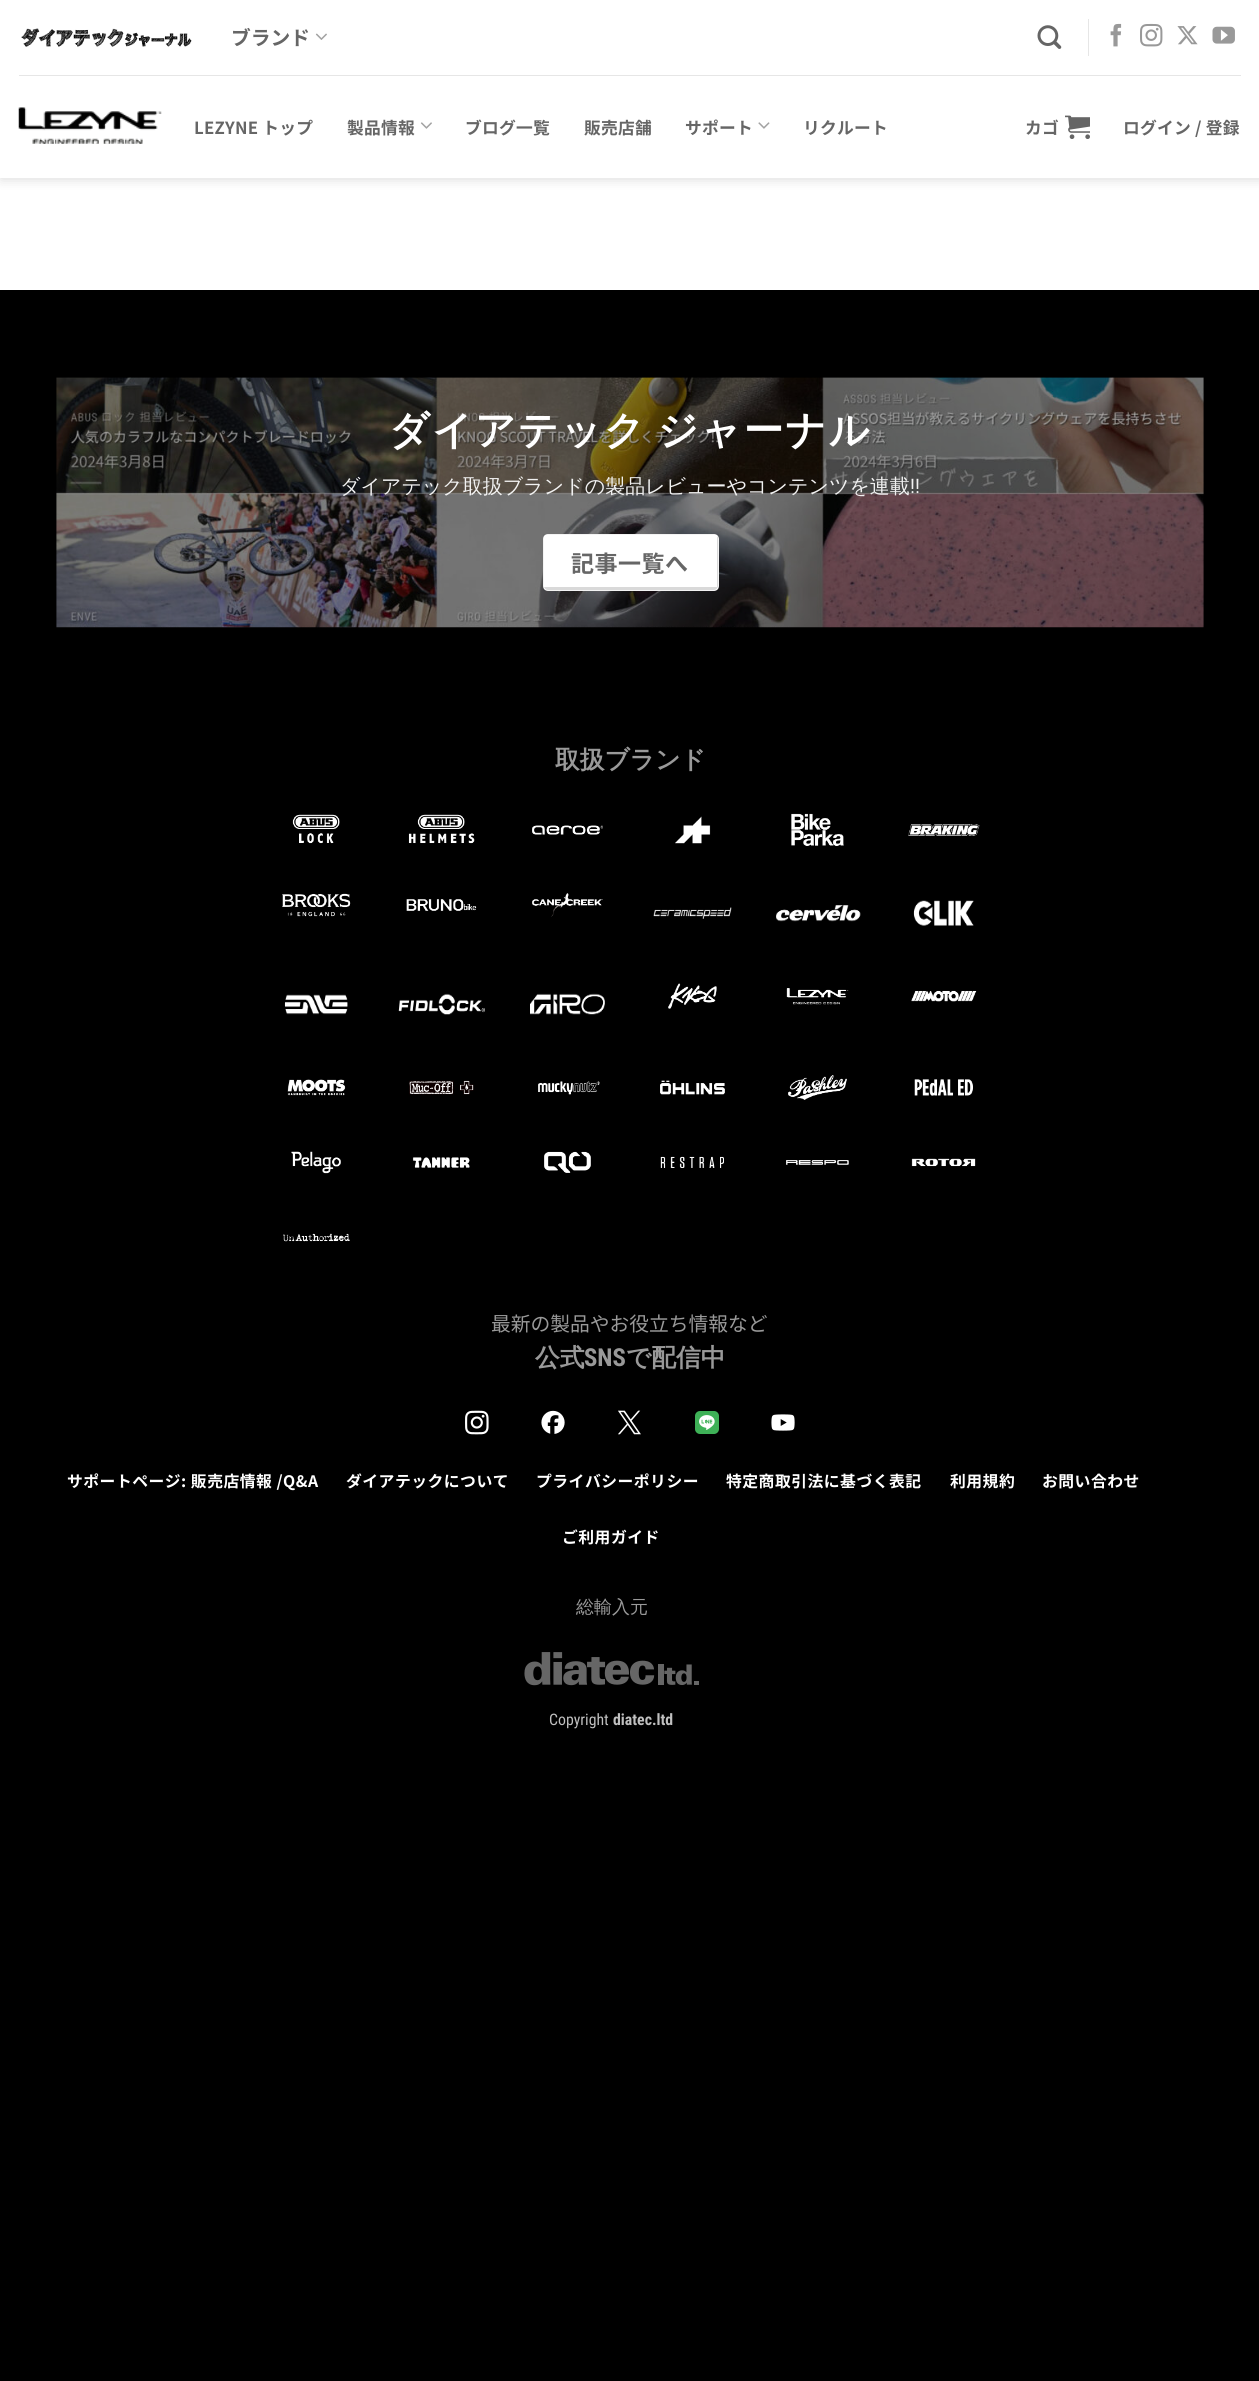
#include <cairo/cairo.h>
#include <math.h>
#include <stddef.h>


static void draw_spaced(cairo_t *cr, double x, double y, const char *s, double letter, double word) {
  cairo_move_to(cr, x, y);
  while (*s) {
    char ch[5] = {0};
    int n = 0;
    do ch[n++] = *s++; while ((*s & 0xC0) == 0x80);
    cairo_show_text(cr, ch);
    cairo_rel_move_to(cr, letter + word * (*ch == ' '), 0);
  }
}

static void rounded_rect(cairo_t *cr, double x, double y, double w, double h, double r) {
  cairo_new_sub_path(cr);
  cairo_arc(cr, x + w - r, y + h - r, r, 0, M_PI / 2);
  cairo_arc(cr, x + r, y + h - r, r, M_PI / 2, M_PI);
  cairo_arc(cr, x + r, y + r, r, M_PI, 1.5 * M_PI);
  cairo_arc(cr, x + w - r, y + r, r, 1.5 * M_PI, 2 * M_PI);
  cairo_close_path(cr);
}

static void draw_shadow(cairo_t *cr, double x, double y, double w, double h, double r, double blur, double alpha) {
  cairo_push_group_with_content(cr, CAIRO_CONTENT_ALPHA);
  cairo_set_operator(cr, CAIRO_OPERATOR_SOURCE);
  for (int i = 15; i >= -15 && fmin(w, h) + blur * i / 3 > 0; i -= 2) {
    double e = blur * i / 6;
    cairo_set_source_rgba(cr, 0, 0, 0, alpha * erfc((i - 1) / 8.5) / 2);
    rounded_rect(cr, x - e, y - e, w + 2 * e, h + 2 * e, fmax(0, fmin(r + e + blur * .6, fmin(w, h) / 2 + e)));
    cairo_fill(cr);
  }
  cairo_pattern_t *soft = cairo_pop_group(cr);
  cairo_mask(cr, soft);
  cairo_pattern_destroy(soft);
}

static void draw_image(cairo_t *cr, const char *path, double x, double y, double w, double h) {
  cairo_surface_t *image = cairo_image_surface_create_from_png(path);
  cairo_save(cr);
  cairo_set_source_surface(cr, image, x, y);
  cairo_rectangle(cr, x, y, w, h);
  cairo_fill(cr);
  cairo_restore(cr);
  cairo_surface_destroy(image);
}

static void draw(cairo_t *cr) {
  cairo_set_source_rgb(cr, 0, 0, 0);
  cairo_paint(cr);
  cairo_set_source_rgb(cr, 1, 1, 1);
  cairo_rectangle(cr, 0, 0, 1259, 290);
  cairo_fill(cr);
  cairo_save(cr);
  cairo_set_fill_rule(cr, CAIRO_FILL_RULE_EVEN_ODD);
  cairo_new_path(cr);
  cairo_move_to(cr, 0, 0);
  cairo_line_to(cr, 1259, 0);
  cairo_line_to(cr, 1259, 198);
  cairo_line_to(cr, 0, 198);
  cairo_close_path(cr);
  cairo_move_to(cr, 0, 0);
  cairo_line_to(cr, 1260, 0);
  cairo_line_to(cr, 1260, 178);
  cairo_line_to(cr, 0, 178);
  cairo_close_path(cr);
  cairo_clip(cr);
  cairo_set_source_rgb(cr, 0, 0, 0);
  draw_shadow(cr, 1, 1, 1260, 178, 0, 6, 0.15);
  cairo_restore(cr);
  draw_image(cr, "images/1.png", 21, 28, 171, 19);
  draw_image(cr, "images/2.png", 315, 33, 12, 7);
  draw_image(cr, "images/3.png", 1037, 25, 25, 24);
  cairo_set_source_rgb(cr, 230 / 255.0, 230 / 255.0, 230 / 255.0);
  cairo_rectangle(cr, 1088, 19, 1, 37);
  cairo_fill(cr);
  draw_image(cr, "images/4.png", 1110, 23, 12, 24);
  draw_image(cr, "images/5.png", 1140, 23, 23, 24);
  draw_image(cr, "images/6.png", 1177, 26, 21, 19);
  draw_image(cr, "images/7.png", 1212, 26, 23, 18);
  cairo_rectangle(cr, 19, 75, 1222, 1);
  cairo_fill(cr);
  draw_image(cr, "images/8.png", 18, 107, 144, 37);
  draw_image(cr, "images/9.png", 420, 122, 12, 7);
  draw_image(cr, "images/10.png", 758, 122, 12, 7);
  draw_image(cr, "images/11.png", 1065, 115, 25, 24);
  cairo_set_source_rgba(cr, 1, 1, 1, 0.9);
  cairo_rectangle(cr, 0, 177, 1259, 1);
  cairo_fill(cr);
  draw_image(cr, "images/12.png", 56, 377, 1148, 251);
  cairo_set_source_rgb(cr, 1, 1, 1);
  rounded_rect(cr, 543, 534, 176, 57, 5);
  cairo_fill(cr);
  cairo_rectangle(cr, 543.5, 534.5, 175, 56);
  cairo_set_source_rgba(cr, 0, 0, 0, 0.05);
  cairo_set_line_width(cr, 1);
  cairo_stroke(cr);
  draw_image(cr, "images/13.png", 292, 814, 48, 30);
  draw_image(cr, "images/14.png", 408, 814, 67, 30);
  draw_image(cr, "images/15.png", 532, 825, 71, 10);
  draw_image(cr, "images/16.png", 675, 816, 36, 28);
  draw_image(cr, "images/17.png", 791, 813, 53, 33);
  draw_image(cr, "images/18.png", 908, 824, 72, 12);
  draw_image(cr, "images/19.png", 282, 893, 69, 24);
  draw_image(cr, "images/20.png", 406, 899, 71, 12);
  draw_image(cr, "images/21.png", 532, 893, 71, 24);
  draw_image(cr, "images/22.png", 653, 907, 79, 12);
  draw_image(cr, "images/23.png", 776, 905, 85, 17);
  draw_image(cr, "images/24.png", 913, 900, 61, 26);
  draw_image(cr, "images/25.png", 284, 994, 64, 21);
  draw_image(cr, "images/26.png", 398, 993, 87, 22);
  draw_image(cr, "images/27.png", 530, 993, 75, 22);
  draw_image(cr, "images/28.png", 668, 983, 49, 26);
  draw_image(cr, "images/29.png", 786, 988, 63, 17);
  draw_image(cr, "images/30.png", 911, 990, 66, 12);
  draw_image(cr, "images/31.png", 287, 1079, 59, 17);
  draw_image(cr, "images/32.png", 409, 1080, 65, 15);
  draw_image(cr, "images/33.png", 538, 1081, 62, 14);
  draw_image(cr, "images/34.png", 660, 1080, 65, 15);
  draw_image(cr, "images/35.png", 788, 1075, 59, 25);
  draw_image(cr, "images/36.png", 914, 1079, 59, 17);
  draw_image(cr, "images/37.png", 291, 1151, 50, 23);
  draw_image(cr, "images/38.png", 412, 1157, 58, 11);
  draw_image(cr, "images/39.png", 544, 1151, 47, 22);
  draw_image(cr, "images/40.png", 660, 1156, 64, 12);
  draw_image(cr, "images/41.png", 786, 1160, 63, 5);
  draw_image(cr, "images/42.png", 911, 1158, 65, 9);
  draw_image(cr, "images/43.png", 283, 1233, 67, 9);
  draw_image(cr, "images/44.png", 465, 1410, 24, 25);
  draw_image(cr, "images/45.png", 541, 1410, 24, 24);
  draw_image(cr, "images/46.png", 618, 1410, 23, 25);
  draw_image(cr, "images/47.png", 695, 1411, 24, 23);
  draw_image(cr, "images/48.png", 771, 1414, 24, 17);
  draw_image(cr, "images/49.png", 524, 1652, 175, 34);
  cairo_select_font_face(cr, "Noto Sans JP", CAIRO_FONT_SLANT_NORMAL, CAIRO_FONT_WEIGHT_BOLD);
  cairo_set_font_size(cr, 19.75);
  cairo_set_source_rgb(cr, 102 / 255.0, 102 / 255.0, 102 / 255.0);
  cairo_move_to(cr, 231, 45);
  cairo_show_text(cr, "ブランド");
  cairo_set_font_size(cr, 16.75);
  draw_spaced(cr, 194, 134, "LEZYNE トップ", 0.25, 0);
  draw_spaced(cr, 347, 134, "製品情報", 0.25, 0);
  draw_spaced(cr, 465, 134, "ブログ一覧", 0.25, 0);
  draw_spaced(cr, 584, 134, "販売店舗", 0.25, 0);
  draw_spaced(cr, 685, 134, "サポート", 0.25, 0);
  draw_spaced(cr, 803, 134, "リクルート", 0.25, 0);
  draw_spaced(cr, 1025, 134, "カゴ", 0.25, 0);
  draw_spaced(cr, 1123, 134, "ログイン / 登録", 0.25, 0);
  cairo_select_font_face(cr, "WenQuanYi Zen Hei", CAIRO_FONT_SLANT_NORMAL, CAIRO_FONT_WEIGHT_BOLD);
  cairo_set_font_size(cr, 40);
  cairo_set_source_rgb(cr, 1, 1, 1);
  draw_spaced(cr, 389, 444, "ダイアテック ジャーナル", 2, -3);
  cairo_select_font_face(cr, "WenQuanYi Zen Hei Medium", CAIRO_FONT_SLANT_NORMAL, CAIRO_FONT_WEIGHT_NORMAL);
  cairo_set_font_size(cr, 20);
  cairo_set_source_rgb(cr, 241 / 255.0, 241 / 255.0, 241 / 255.0);
  cairo_move_to(cr, 340, 493);
  cairo_show_text(cr, "ダイアテック取扱ブランドの製品レビューやコンテンツを連載");
  cairo_select_font_face(cr, "Roboto Condensed", CAIRO_FONT_SLANT_NORMAL, CAIRO_FONT_WEIGHT_NORMAL);
  cairo_move_to(cr, 910, 493);
  cairo_show_text(cr, "!!");
  cairo_select_font_face(cr, "Noto Sans JP", CAIRO_FONT_SLANT_NORMAL, CAIRO_FONT_WEIGHT_BOLD);
  cairo_set_font_size(cr, 23);
  cairo_set_source_rgb(cr, 102 / 255.0, 102 / 255.0, 102 / 255.0);
  draw_spaced(cr, 571, 572, "記事一覧へ", 0.5, 0);
  cairo_set_source_rgba(cr, 0, 0, 0, 0.15);
  cairo_new_path(cr);
  cairo_move_to(cr, 544, 587);
  cairo_curve_to(cr, 545, 589, 546, 590, 548, 590);
  cairo_line_to(cr, 714, 590);
  cairo_curve_to(cr, 716, 590, 718, 588, 718, 586);
  cairo_line_to(cr, 718, 539);
  cairo_curve_to(cr, 718, 538, 718, 537, 717, 536);
  cairo_line_to(cr, 717, 587);
  cairo_close_path(cr);
  cairo_fill(cr);
  cairo_select_font_face(cr, "WenQuanYi Zen Hei", CAIRO_FONT_SLANT_NORMAL, CAIRO_FONT_WEIGHT_BOLD);
  cairo_set_font_size(cr, 24.75);
  cairo_set_source_rgb(cr, 153 / 255.0, 153 / 255.0, 153 / 255.0);
  cairo_move_to(cr, 555, 768);
  cairo_show_text(cr, "取扱ブランド");
  cairo_select_font_face(cr, "Noto Sans JP", CAIRO_FONT_SLANT_NORMAL, CAIRO_FONT_WEIGHT_NORMAL);
  cairo_set_font_size(cr, 19.75);
  cairo_move_to(cr, 491, 1331);
  cairo_show_text(cr, "最新の製品やお役立ち情報など");
  cairo_select_font_face(cr, "WenQuanYi Zen Hei", CAIRO_FONT_SLANT_NORMAL, CAIRO_FONT_WEIGHT_BOLD);
  cairo_set_font_size(cr, 24.75);
  cairo_move_to(cr, 535, 1366);
  cairo_show_text(cr, "公式");
  cairo_select_font_face(cr, "Roboto Condensed", CAIRO_FONT_SLANT_NORMAL, CAIRO_FONT_WEIGHT_BOLD);
  cairo_move_to(cr, 584, 1366);
  cairo_show_text(cr, "SNS");
  cairo_select_font_face(cr, "WenQuanYi Zen Hei", CAIRO_FONT_SLANT_NORMAL, CAIRO_FONT_WEIGHT_BOLD);
  cairo_move_to(cr, 626, 1366);
  cairo_show_text(cr, "で配信中");
  cairo_select_font_face(cr, "Noto Sans JP", CAIRO_FONT_SLANT_NORMAL, CAIRO_FONT_WEIGHT_BOLD);
  cairo_set_font_size(cr, 15.8);
  cairo_set_source_rgb(cr, 1, 1, 1);
  draw_spaced(cr, 67, 1487, "サポートページ: 販売店情報 /Q&A", 0.5, 0);
  draw_spaced(cr, 346, 1487, "ダイアテックについて", 0.5, 0);
  draw_spaced(cr, 536, 1487, "プライバシーポリシー", 0.5, 0);
  draw_spaced(cr, 726, 1487, "特定商取引法に基づく表記", 0.5, 0);
  draw_spaced(cr, 950, 1487, "利用規約", 0.5, 0);
  draw_spaced(cr, 1042, 1487, "お問い合わせ", 0.5, 0);
  draw_spaced(cr, 562, 1543, "ご利用ガイド", 0.5, 0);
  cairo_select_font_face(cr, "WenQuanYi Zen Hei Medium", CAIRO_FONT_SLANT_NORMAL, CAIRO_FONT_WEIGHT_NORMAL);
  cairo_set_font_size(cr, 18);
  cairo_set_source_rgb(cr, 153 / 255.0, 153 / 255.0, 153 / 255.0);
  cairo_move_to(cr, 576, 1613);
  cairo_show_text(cr, "総輸入元");
  cairo_select_font_face(cr, "Roboto Condensed", CAIRO_FONT_SLANT_NORMAL, CAIRO_FONT_WEIGHT_NORMAL);
  cairo_set_font_size(cr, 15.8);
  cairo_set_source_rgb(cr, 192 / 255.0, 192 / 255.0, 192 / 255.0);
  cairo_move_to(cr, 549, 1725);
  cairo_show_text(cr, "Copyright");
  cairo_select_font_face(cr, "Roboto Condensed", CAIRO_FONT_SLANT_NORMAL, CAIRO_FONT_WEIGHT_BOLD);
  cairo_move_to(cr, 613, 1725);
  cairo_show_text(cr, "diatec.ltd");
}

int main(void) {
  cairo_surface_t *surface = cairo_image_surface_create(CAIRO_FORMAT_RGB24, 1259, 2381);
  cairo_t *cr = cairo_create(surface);
  cairo_font_options_t *options = cairo_font_options_create();
  cairo_font_options_set_hint_metrics(options, CAIRO_HINT_METRICS_OFF);
  cairo_font_options_set_hint_style(options, CAIRO_HINT_STYLE_NONE);
  cairo_set_font_options(cr, options);
  cairo_set_miter_limit(cr, 4);
  draw(cr);
  cairo_surface_write_to_png(surface, "out.png");
  cairo_font_options_destroy(options);
  cairo_destroy(cr);
  cairo_surface_destroy(surface);
  return 0;
}
